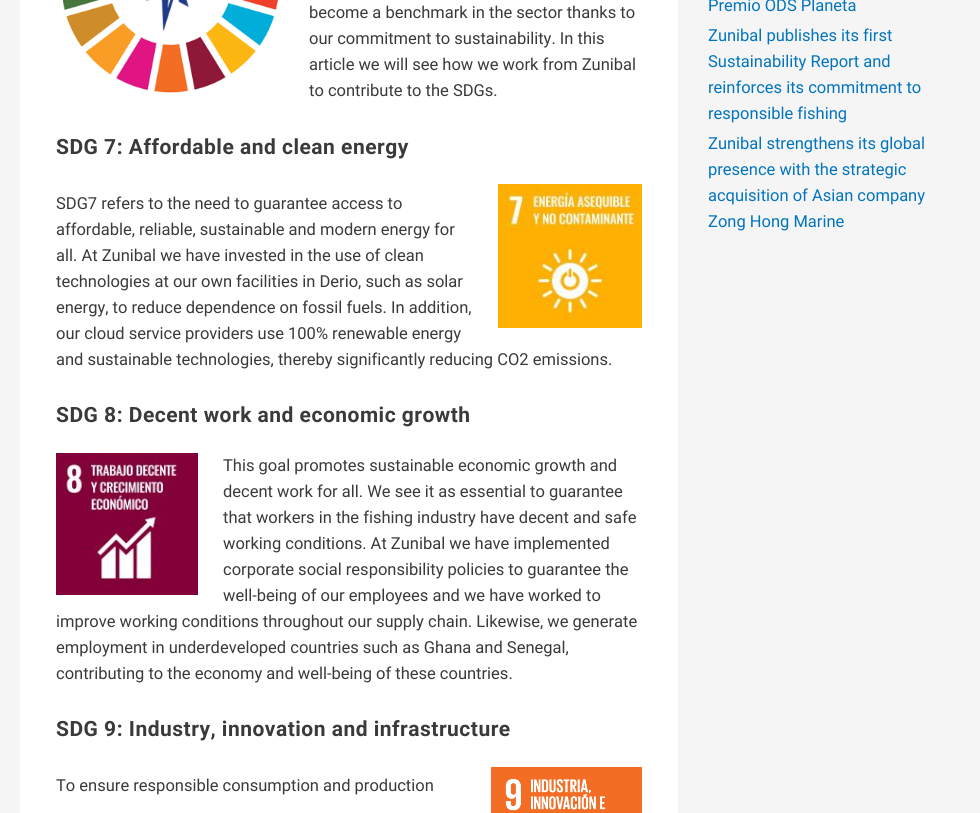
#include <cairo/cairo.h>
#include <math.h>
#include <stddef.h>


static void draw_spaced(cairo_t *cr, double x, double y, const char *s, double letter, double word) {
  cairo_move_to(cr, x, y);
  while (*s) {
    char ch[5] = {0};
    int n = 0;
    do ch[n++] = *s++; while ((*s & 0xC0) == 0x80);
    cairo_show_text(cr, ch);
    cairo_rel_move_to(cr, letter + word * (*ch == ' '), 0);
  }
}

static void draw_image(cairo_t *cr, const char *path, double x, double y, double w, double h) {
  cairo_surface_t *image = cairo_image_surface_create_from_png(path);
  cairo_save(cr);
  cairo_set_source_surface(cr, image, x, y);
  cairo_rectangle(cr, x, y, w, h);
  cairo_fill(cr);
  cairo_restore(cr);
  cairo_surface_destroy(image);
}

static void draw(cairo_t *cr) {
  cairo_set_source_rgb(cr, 245 / 255.0, 245 / 255.0, 245 / 255.0);
  cairo_paint(cr);
  cairo_set_source_rgb(cr, 1, 1, 1);
  cairo_rectangle(cr, 20, 0, 658, 813);
  cairo_fill(cr);
  draw_image(cr, "images/1.png", 62, 0, 216, 93);
  draw_image(cr, "images/2.png", 498, 184, 144, 144);
  draw_image(cr, "images/3.png", 56, 453, 142, 142);
  draw_image(cr, "images/4.png", 491, 767, 151, 46);
  cairo_select_font_face(cr, "Roboto", CAIRO_FONT_SLANT_NORMAL, CAIRO_FONT_WEIGHT_NORMAL);
  cairo_set_font_size(cr, 16.5);
  cairo_set_source_rgb(cr, 58 / 255.0, 58 / 255.0, 58 / 255.0);
  cairo_move_to(cr, 309, 18);
  cairo_show_text(cr, "become a benchmark in the sector thanks to");
  cairo_move_to(cr, 309, 44);
  cairo_show_text(cr, "our commitment to sustainability. In this");
  cairo_move_to(cr, 309, 70);
  cairo_show_text(cr, "article we will see how we work from Zunibal");
  cairo_move_to(cr, 309, 96);
  cairo_show_text(cr, "to contribute to the SDGs.");
  cairo_select_font_face(cr, "Roboto", CAIRO_FONT_SLANT_NORMAL, CAIRO_FONT_WEIGHT_BOLD);
  cairo_set_font_size(cr, 21);
  draw_spaced(cr, 56, 154, "SDG 7: Affordable and clean energy", 0.5, 0);
  cairo_select_font_face(cr, "Roboto", CAIRO_FONT_SLANT_NORMAL, CAIRO_FONT_WEIGHT_NORMAL);
  cairo_set_font_size(cr, 16.5);
  cairo_move_to(cr, 56, 209);
  cairo_show_text(cr, "SDG7 refers to the need to guarantee access to");
  cairo_move_to(cr, 56, 235);
  cairo_show_text(cr, "affordable, reliable, sustainable and modern energy for");
  cairo_move_to(cr, 56, 261);
  cairo_show_text(cr, "all. At Zunibal we have invested in the use of clean");
  cairo_move_to(cr, 56, 287);
  cairo_show_text(cr, "technologies at our own facilities in Derio, such as solar");
  cairo_move_to(cr, 56, 313);
  cairo_show_text(cr, "energy, to reduce dependence on fossil fuels. In addition,");
  cairo_move_to(cr, 56, 339);
  cairo_show_text(cr, "our cloud service providers use 100% renewable energy");
  cairo_move_to(cr, 56, 365);
  cairo_show_text(cr, "and sustainable technologies, thereby significantly reducing CO2 emissions.");
  cairo_select_font_face(cr, "Roboto", CAIRO_FONT_SLANT_NORMAL, CAIRO_FONT_WEIGHT_BOLD);
  cairo_set_font_size(cr, 21);
  draw_spaced(cr, 56, 422, "SDG 8: Decent work and economic growth", 0.5, 0);
  cairo_select_font_face(cr, "Roboto", CAIRO_FONT_SLANT_NORMAL, CAIRO_FONT_WEIGHT_NORMAL);
  cairo_set_font_size(cr, 16.5);
  cairo_move_to(cr, 223, 471);
  cairo_show_text(cr, "This goal promotes sustainable economic growth and");
  cairo_move_to(cr, 223, 497);
  cairo_show_text(cr, "decent work for all. We see it as essential to guarantee");
  cairo_move_to(cr, 223, 523);
  cairo_show_text(cr, "that workers in the fishing industry have decent and safe");
  cairo_move_to(cr, 223, 549);
  cairo_show_text(cr, "working conditions. At Zunibal we have implemented");
  cairo_move_to(cr, 223, 575);
  cairo_show_text(cr, "corporate social responsibility policies to guarantee the");
  cairo_move_to(cr, 223, 601);
  cairo_show_text(cr, "well-being of our employees and we have worked to");
  cairo_move_to(cr, 56, 627);
  cairo_show_text(cr, "improve working conditions throughout our supply chain. Likewise, we generate");
  cairo_move_to(cr, 56, 653);
  cairo_show_text(cr, "employment in underdeveloped countries such as Ghana and Senegal,");
  cairo_move_to(cr, 56, 679);
  cairo_show_text(cr, "contributing to the economy and well-being of these countries.");
  cairo_select_font_face(cr, "Roboto", CAIRO_FONT_SLANT_NORMAL, CAIRO_FONT_WEIGHT_BOLD);
  cairo_set_font_size(cr, 21);
  draw_spaced(cr, 56, 736, "SDG 9: Industry, innovation and infrastructure", 0.5, 0);
  cairo_select_font_face(cr, "Roboto", CAIRO_FONT_SLANT_NORMAL, CAIRO_FONT_WEIGHT_NORMAL);
  cairo_set_font_size(cr, 16.5);
  cairo_move_to(cr, 56, 791);
  cairo_show_text(cr, "To ensure responsible consumption and production");
  cairo_set_source_rgb(cr, 2 / 255.0, 116 / 255.0, 190 / 255.0);
  cairo_move_to(cr, 708, 11);
  cairo_show_text(cr, "Premio ODS Planeta");
  cairo_move_to(cr, 708, 41);
  cairo_show_text(cr, "Zunibal publishes its first");
  cairo_move_to(cr, 708, 67);
  cairo_show_text(cr, "Sustainability Report and");
  cairo_move_to(cr, 708, 93);
  cairo_show_text(cr, "reinforces its commitment to");
  cairo_move_to(cr, 708, 119);
  cairo_show_text(cr, "responsible fishing");
  cairo_move_to(cr, 708, 149);
  cairo_show_text(cr, "Zunibal strengthens its global");
  cairo_move_to(cr, 708, 175);
  cairo_show_text(cr, "presence with the strategic");
  cairo_move_to(cr, 708, 201);
  cairo_show_text(cr, "acquisition of Asian company");
  cairo_move_to(cr, 708, 227);
  cairo_show_text(cr, "Zong Hong Marine");
}

int main(void) {
  cairo_surface_t *surface = cairo_image_surface_create(CAIRO_FORMAT_RGB24, 980, 813);
  cairo_t *cr = cairo_create(surface);
  cairo_font_options_t *options = cairo_font_options_create();
  cairo_font_options_set_hint_metrics(options, CAIRO_HINT_METRICS_OFF);
  cairo_font_options_set_hint_style(options, CAIRO_HINT_STYLE_NONE);
  cairo_set_font_options(cr, options);
  cairo_set_miter_limit(cr, 4);
  draw(cr);
  cairo_surface_write_to_png(surface, "out.png");
  cairo_font_options_destroy(options);
  cairo_destroy(cr);
  cairo_surface_destroy(surface);
  return 0;
}
